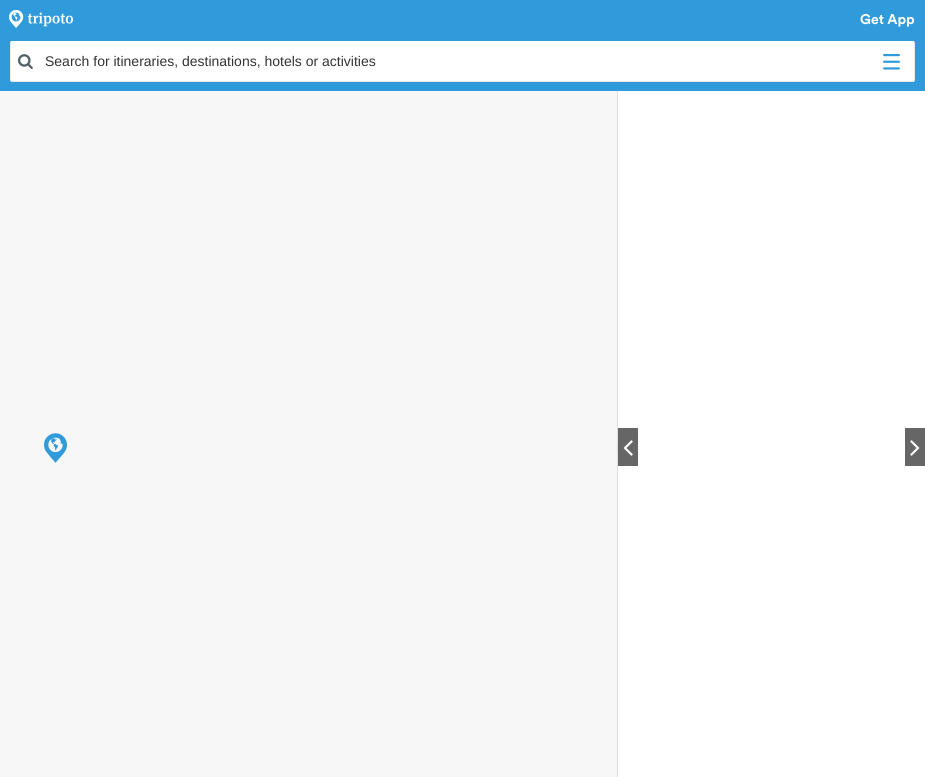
#include <cairo/cairo.h>
#include <math.h>
#include <stddef.h>


static void rounded_rect(cairo_t *cr, double x, double y, double w, double h, double r) {
  cairo_new_sub_path(cr);
  cairo_arc(cr, x + w - r, y + h - r, r, 0, M_PI / 2);
  cairo_arc(cr, x + r, y + h - r, r, M_PI / 2, M_PI);
  cairo_arc(cr, x + r, y + r, r, M_PI, 1.5 * M_PI);
  cairo_arc(cr, x + w - r, y + r, r, 1.5 * M_PI, 2 * M_PI);
  cairo_close_path(cr);
}

static void draw_image(cairo_t *cr, const char *path, double x, double y, double w, double h) {
  cairo_surface_t *image = cairo_image_surface_create_from_png(path);
  cairo_save(cr);
  cairo_set_source_surface(cr, image, x, y);
  cairo_rectangle(cr, x, y, w, h);
  cairo_fill(cr);
  cairo_restore(cr);
  cairo_surface_destroy(image);
}

static void draw(cairo_t *cr) {
  cairo_set_source_rgb(cr, 1, 1, 1);
  cairo_paint(cr);
  cairo_set_source_rgb(cr, 221 / 255.0, 221 / 255.0, 221 / 255.0);
  cairo_rectangle(cr, 617, 90, 1, 687);
  cairo_fill(cr);
  cairo_set_source_rgb(cr, 47 / 255.0, 155 / 255.0, 219 / 255.0);
  cairo_rectangle(cr, 0, 0, 925, 91);
  cairo_fill(cr);
  draw_image(cr, "images/1.png", 9, 10, 64, 18);
  cairo_set_source_rgb(cr, 1, 1, 1);
  rounded_rect(cr, 10, 41, 905, 41, 2);
  cairo_fill(cr);
  draw_image(cr, "images/2.png", 18, 54, 15, 15);
  cairo_set_source_rgba(cr, 0, 0, 0, 0.09);
  cairo_rectangle(cr, 914, 42, 1, 39);
  cairo_fill(cr);
  cairo_rectangle(cr, 11, 81, 903, 1);
  cairo_fill(cr);
  cairo_rectangle(cr, 10, 42, 1, 39);
  cairo_fill(cr);
  draw_image(cr, "images/3.png", 883, 54, 17, 16);
  cairo_set_source_rgb(cr, 247 / 255.0, 247 / 255.0, 247 / 255.0);
  cairo_rectangle(cr, 0, 91, 617, 686);
  cairo_fill(cr);
  draw_image(cr, "images/4.png", 44, 433, 23, 30);
  cairo_set_source_rgb(cr, 102 / 255.0, 102 / 255.0, 102 / 255.0);
  cairo_rectangle(cr, 618, 428, 20, 38);
  cairo_fill(cr);
  draw_image(cr, "images/5.png", 623, 440, 10, 16);
  cairo_rectangle(cr, 905, 428, 20, 38);
  cairo_fill(cr);
  draw_image(cr, "images/6.png", 910, 440, 10, 16);
  cairo_select_font_face(cr, "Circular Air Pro", CAIRO_FONT_SLANT_NORMAL, CAIRO_FONT_WEIGHT_BOLD);
  cairo_set_font_size(cr, 14);
  cairo_set_source_rgb(cr, 1, 1, 1);
  cairo_move_to(cr, 860, 24);
  cairo_show_text(cr, "Get App");
  cairo_select_font_face(cr, "Liberation Sans", CAIRO_FONT_SLANT_NORMAL, CAIRO_FONT_WEIGHT_NORMAL);
  cairo_set_source_rgb(cr, 51 / 255.0, 51 / 255.0, 51 / 255.0);
  cairo_move_to(cr, 45, 66);
  cairo_show_text(cr, "Search for itineraries, destinations, hotels or activities");
}

int main(void) {
  cairo_surface_t *surface = cairo_image_surface_create(CAIRO_FORMAT_RGB24, 925, 777);
  cairo_t *cr = cairo_create(surface);
  cairo_font_options_t *options = cairo_font_options_create();
  cairo_font_options_set_hint_metrics(options, CAIRO_HINT_METRICS_OFF);
  cairo_font_options_set_hint_style(options, CAIRO_HINT_STYLE_NONE);
  cairo_set_font_options(cr, options);
  cairo_set_miter_limit(cr, 4);
  draw(cr);
  cairo_surface_write_to_png(surface, "out.png");
  cairo_font_options_destroy(options);
  cairo_destroy(cr);
  cairo_surface_destroy(surface);
  return 0;
}
